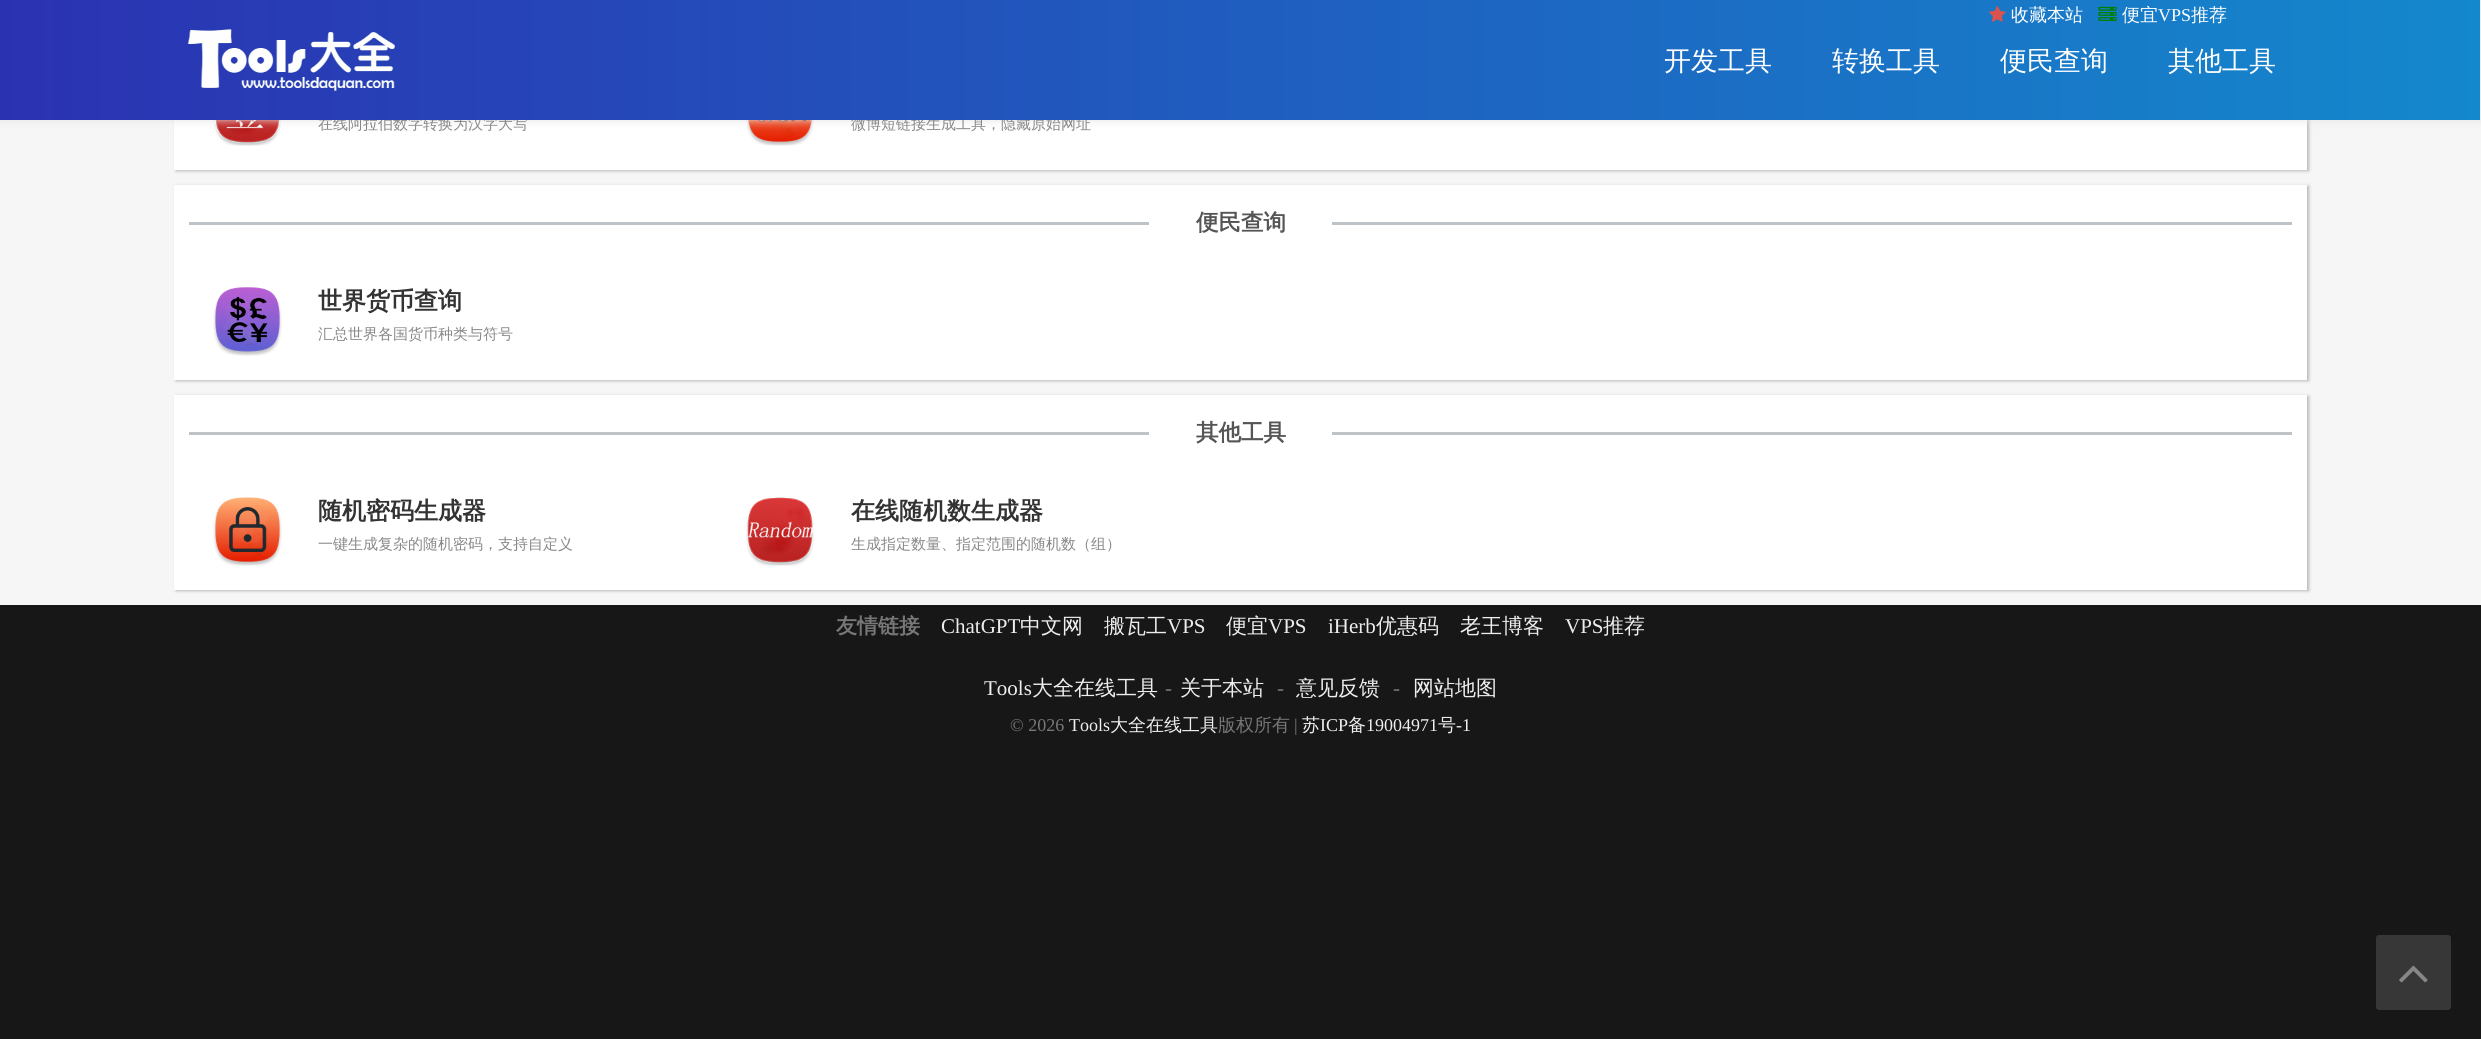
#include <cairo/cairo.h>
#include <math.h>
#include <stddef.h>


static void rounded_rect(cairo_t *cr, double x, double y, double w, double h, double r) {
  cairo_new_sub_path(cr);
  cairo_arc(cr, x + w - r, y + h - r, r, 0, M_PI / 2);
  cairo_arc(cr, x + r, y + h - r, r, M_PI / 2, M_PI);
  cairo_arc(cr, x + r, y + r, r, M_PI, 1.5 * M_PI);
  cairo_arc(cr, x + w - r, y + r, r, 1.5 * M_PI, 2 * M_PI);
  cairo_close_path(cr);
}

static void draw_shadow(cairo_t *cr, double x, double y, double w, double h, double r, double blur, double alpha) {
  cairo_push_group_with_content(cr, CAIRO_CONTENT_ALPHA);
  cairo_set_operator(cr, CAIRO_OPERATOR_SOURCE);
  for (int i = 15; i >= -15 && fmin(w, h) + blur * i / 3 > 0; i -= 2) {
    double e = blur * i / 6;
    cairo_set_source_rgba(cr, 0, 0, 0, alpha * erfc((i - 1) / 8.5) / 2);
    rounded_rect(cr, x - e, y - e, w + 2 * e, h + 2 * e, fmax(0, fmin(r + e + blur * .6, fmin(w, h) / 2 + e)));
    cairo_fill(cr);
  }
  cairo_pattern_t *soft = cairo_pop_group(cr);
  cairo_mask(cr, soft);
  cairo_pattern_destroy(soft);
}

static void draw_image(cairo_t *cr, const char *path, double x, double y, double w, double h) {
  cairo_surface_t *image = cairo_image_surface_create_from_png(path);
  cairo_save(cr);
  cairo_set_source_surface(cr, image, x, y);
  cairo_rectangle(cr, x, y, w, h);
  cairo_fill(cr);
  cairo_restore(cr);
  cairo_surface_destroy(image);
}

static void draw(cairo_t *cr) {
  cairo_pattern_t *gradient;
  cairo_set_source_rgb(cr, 246 / 255.0, 246 / 255.0, 246 / 255.0);
  cairo_paint(cr);
  cairo_set_source_rgb(cr, 184 / 255.0, 184 / 255.0, 184 / 255.0);
  draw_shadow(cr, 176, -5, 2133, 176, 0, 1.5, 1);
  cairo_set_source_rgb(cr, 1, 1, 1);
  cairo_rectangle(cr, 174, 120, 2133, 50);
  cairo_fill(cr);
  draw_image(cr, "images/4.png", 214, 120, 67, 26);
  draw_image(cr, "images/5.png", 746, 120, 68, 26);
  cairo_set_source_rgb(cr, 227 / 255.0, 227 / 255.0, 227 / 255.0);
  draw_shadow(cr, 0, 0, 2481, 120, 0, 4.5, 1);
  cairo_set_source_rgb(cr, 184 / 255.0, 184 / 255.0, 184 / 255.0);
  draw_shadow(cr, 176, 186, 2133, 195, 0, 1.5, 1);
  cairo_set_source_rgb(cr, 1, 1, 1);
  cairo_rectangle(cr, 174, 185, 2133, 195);
  cairo_fill(cr);
  cairo_set_source_rgb(cr, 189 / 255.0, 195 / 255.0, 199 / 255.0);
  cairo_rectangle(cr, 189, 222, 960, 3);
  cairo_fill(cr);
  cairo_rectangle(cr, 1332, 222, 960, 3);
  cairo_fill(cr);
  draw_image(cr, "images/6.png", 213, 287, 69, 69);
  cairo_set_source_rgb(cr, 184 / 255.0, 184 / 255.0, 184 / 255.0);
  draw_shadow(cr, 176, 396, 2133, 195, 0, 1.5, 1);
  cairo_set_source_rgb(cr, 1, 1, 1);
  cairo_rectangle(cr, 174, 395, 2133, 195);
  cairo_fill(cr);
  cairo_set_source_rgb(cr, 189 / 255.0, 195 / 255.0, 199 / 255.0);
  cairo_rectangle(cr, 189, 432, 960, 3);
  cairo_fill(cr);
  cairo_rectangle(cr, 1332, 432, 960, 3);
  cairo_fill(cr);
  draw_image(cr, "images/7.png", 213, 497, 69, 69);
  draw_image(cr, "images/8.png", 746, 497, 68, 69);
  cairo_set_source_rgb(cr, 23 / 255.0, 23 / 255.0, 23 / 255.0);
  cairo_rectangle(cr, 0, 605, 2481, 434);
  cairo_fill(cr);
  cairo_set_source_rgb(cr, 55 / 255.0, 55 / 255.0, 55 / 255.0);
  rounded_rect(cr, 2376, 935, 75, 75, 3);
  cairo_fill(cr);
  draw_image(cr, "images/9.png", 2399, 965, 29, 18);
  cairo_select_font_face(cr, "WenQuanYi Zen Hei Medium", CAIRO_FONT_SLANT_NORMAL, CAIRO_FONT_WEIGHT_NORMAL);
  cairo_set_font_size(cr, 15);
  cairo_set_source_rgb(cr, 136 / 255.0, 136 / 255.0, 136 / 255.0);
  cairo_move_to(cr, 318, 129);
  cairo_show_text(cr, "在线阿拉伯数字转换为汉字大写");
  cairo_move_to(cr, 851, 129);
  cairo_show_text(cr, "微博短链接生成工具，隐藏原始网址");
  gradient = cairo_pattern_create_linear(0, 60, 2480, 60);
  cairo_pattern_add_color_stop_rgba(gradient, 0, 43 / 255.0, 50 / 255.0, 178 / 255.0, 1);
  cairo_pattern_add_color_stop_rgba(gradient, 1, 20 / 255.0, 136 / 255.0, 204 / 255.0, 1);
  cairo_set_source(cr, gradient);
  cairo_pattern_destroy(gradient);
  cairo_rectangle(cr, 0, 0, 2480, 120);
  cairo_fill(cr);
  cairo_set_font_size(cr, 18);
  cairo_set_source_rgb(cr, 1, 1, 1);
  cairo_move_to(cr, 2191, 21);
  cairo_show_text(cr, "推荐");
  cairo_select_font_face(cr, "Liberation Serif", CAIRO_FONT_SLANT_NORMAL, CAIRO_FONT_WEIGHT_NORMAL);
  cairo_move_to(cr, 2158, 21);
  cairo_show_text(cr, "VPS");
  cairo_select_font_face(cr, "WenQuanYi Zen Hei Medium", CAIRO_FONT_SLANT_NORMAL, CAIRO_FONT_WEIGHT_NORMAL);
  cairo_move_to(cr, 2122, 21);
  cairo_show_text(cr, "便宜");
  draw_image(cr, "images/2.png", 2098, 6, 19, 15);
  cairo_move_to(cr, 2011, 21);
  cairo_show_text(cr, "收藏本站");
  draw_image(cr, "images/1.png", 1989, 5, 17, 17);
  cairo_set_font_size(cr, 27);
  cairo_move_to(cr, 2168, 70);
  cairo_show_text(cr, "其他工具");
  cairo_move_to(cr, 2000, 70);
  cairo_show_text(cr, "便民查询");
  cairo_move_to(cr, 1832, 70);
  cairo_show_text(cr, "转换工具");
  cairo_move_to(cr, 1664, 70);
  cairo_show_text(cr, "开发工具");
  draw_image(cr, "images/3.png", 187, 29, 208, 62);
  cairo_select_font_face(cr, "WenQuanYi Zen Hei", CAIRO_FONT_SLANT_NORMAL, CAIRO_FONT_WEIGHT_BOLD);
  cairo_set_font_size(cr, 22.5);
  cairo_set_source_rgb(cr, 85 / 255.0, 85 / 255.0, 85 / 255.0);
  cairo_move_to(cr, 1196, 230);
  cairo_show_text(cr, "便民查询");
  cairo_set_font_size(cr, 24);
  cairo_set_source_rgb(cr, 51 / 255.0, 51 / 255.0, 51 / 255.0);
  cairo_move_to(cr, 318, 309);
  cairo_show_text(cr, "世界货币查询");
  cairo_select_font_face(cr, "WenQuanYi Zen Hei Medium", CAIRO_FONT_SLANT_NORMAL, CAIRO_FONT_WEIGHT_NORMAL);
  cairo_set_font_size(cr, 15);
  cairo_set_source_rgb(cr, 136 / 255.0, 136 / 255.0, 136 / 255.0);
  cairo_move_to(cr, 318, 339);
  cairo_show_text(cr, "汇总世界各国货币种类与符号");
  cairo_select_font_face(cr, "WenQuanYi Zen Hei", CAIRO_FONT_SLANT_NORMAL, CAIRO_FONT_WEIGHT_BOLD);
  cairo_set_font_size(cr, 22.5);
  cairo_set_source_rgb(cr, 85 / 255.0, 85 / 255.0, 85 / 255.0);
  cairo_move_to(cr, 1196, 440);
  cairo_show_text(cr, "其他工具");
  cairo_set_font_size(cr, 24);
  cairo_set_source_rgb(cr, 51 / 255.0, 51 / 255.0, 51 / 255.0);
  cairo_move_to(cr, 318, 519);
  cairo_show_text(cr, "随机密码生成器");
  cairo_select_font_face(cr, "WenQuanYi Zen Hei Medium", CAIRO_FONT_SLANT_NORMAL, CAIRO_FONT_WEIGHT_NORMAL);
  cairo_set_font_size(cr, 15);
  cairo_set_source_rgb(cr, 136 / 255.0, 136 / 255.0, 136 / 255.0);
  cairo_move_to(cr, 318, 549);
  cairo_show_text(cr, "一键生成复杂的随机密码，支持自定义");
  cairo_select_font_face(cr, "WenQuanYi Zen Hei", CAIRO_FONT_SLANT_NORMAL, CAIRO_FONT_WEIGHT_BOLD);
  cairo_set_font_size(cr, 24);
  cairo_set_source_rgb(cr, 51 / 255.0, 51 / 255.0, 51 / 255.0);
  cairo_move_to(cr, 851, 519);
  cairo_show_text(cr, "在线随机数生成器");
  cairo_select_font_face(cr, "WenQuanYi Zen Hei Medium", CAIRO_FONT_SLANT_NORMAL, CAIRO_FONT_WEIGHT_NORMAL);
  cairo_set_font_size(cr, 15);
  cairo_set_source_rgb(cr, 136 / 255.0, 136 / 255.0, 136 / 255.0);
  cairo_move_to(cr, 851, 549);
  cairo_show_text(cr, "生成指定数量、指定范围的随机数（组）");
  cairo_select_font_face(cr, "WenQuanYi Zen Hei", CAIRO_FONT_SLANT_NORMAL, CAIRO_FONT_WEIGHT_BOLD);
  cairo_set_font_size(cr, 21);
  cairo_set_source_rgb(cr, 119 / 255.0, 119 / 255.0, 119 / 255.0);
  cairo_move_to(cr, 836, 633);
  cairo_show_text(cr, "友情链接");
  cairo_select_font_face(cr, "Liberation Serif", CAIRO_FONT_SLANT_NORMAL, CAIRO_FONT_WEIGHT_NORMAL);
  cairo_set_source_rgb(cr, 238 / 255.0, 238 / 255.0, 238 / 255.0);
  cairo_move_to(cr, 941, 633);
  cairo_show_text(cr, "ChatGPT");
  cairo_select_font_face(cr, "WenQuanYi Zen Hei Medium", CAIRO_FONT_SLANT_NORMAL, CAIRO_FONT_WEIGHT_NORMAL);
  cairo_move_to(cr, 1020, 633);
  cairo_show_text(cr, "中文网");
  cairo_move_to(cr, 1104, 633);
  cairo_show_text(cr, "搬瓦工");
  cairo_select_font_face(cr, "Liberation Serif", CAIRO_FONT_SLANT_NORMAL, CAIRO_FONT_WEIGHT_NORMAL);
  cairo_move_to(cr, 1167, 633);
  cairo_show_text(cr, "VPS");
  cairo_select_font_face(cr, "WenQuanYi Zen Hei Medium", CAIRO_FONT_SLANT_NORMAL, CAIRO_FONT_WEIGHT_NORMAL);
  cairo_move_to(cr, 1226, 633);
  cairo_show_text(cr, "便宜");
  cairo_select_font_face(cr, "Liberation Serif", CAIRO_FONT_SLANT_NORMAL, CAIRO_FONT_WEIGHT_NORMAL);
  cairo_move_to(cr, 1268, 633);
  cairo_show_text(cr, "VPS");
  cairo_move_to(cr, 1328, 633);
  cairo_show_text(cr, "iHerb");
  cairo_select_font_face(cr, "WenQuanYi Zen Hei Medium", CAIRO_FONT_SLANT_NORMAL, CAIRO_FONT_WEIGHT_NORMAL);
  cairo_move_to(cr, 1376, 633);
  cairo_show_text(cr, "优惠码");
  cairo_move_to(cr, 1460, 633);
  cairo_show_text(cr, "老王博客");
  cairo_select_font_face(cr, "Liberation Serif", CAIRO_FONT_SLANT_NORMAL, CAIRO_FONT_WEIGHT_NORMAL);
  cairo_move_to(cr, 1565, 633);
  cairo_show_text(cr, "VPS");
  cairo_select_font_face(cr, "WenQuanYi Zen Hei Medium", CAIRO_FONT_SLANT_NORMAL, CAIRO_FONT_WEIGHT_NORMAL);
  cairo_move_to(cr, 1603, 633);
  cairo_show_text(cr, "推荐");
  cairo_select_font_face(cr, "Liberation Serif", CAIRO_FONT_SLANT_NORMAL, CAIRO_FONT_WEIGHT_NORMAL);
  cairo_move_to(cr, 984, 695);
  cairo_show_text(cr, "Tools");
  cairo_select_font_face(cr, "WenQuanYi Zen Hei Medium", CAIRO_FONT_SLANT_NORMAL, CAIRO_FONT_WEIGHT_NORMAL);
  cairo_move_to(cr, 1032, 695);
  cairo_show_text(cr, "大全在线工具");
  cairo_select_font_face(cr, "Liberation Serif", CAIRO_FONT_SLANT_NORMAL, CAIRO_FONT_WEIGHT_NORMAL);
  cairo_set_source_rgb(cr, 119 / 255.0, 119 / 255.0, 119 / 255.0);
  cairo_move_to(cr, 1165, 695);
  cairo_show_text(cr, "-");
  cairo_select_font_face(cr, "WenQuanYi Zen Hei Medium", CAIRO_FONT_SLANT_NORMAL, CAIRO_FONT_WEIGHT_NORMAL);
  cairo_set_source_rgb(cr, 238 / 255.0, 238 / 255.0, 238 / 255.0);
  cairo_move_to(cr, 1180, 695);
  cairo_show_text(cr, "关于本站");
  cairo_select_font_face(cr, "Liberation Serif", CAIRO_FONT_SLANT_NORMAL, CAIRO_FONT_WEIGHT_NORMAL);
  cairo_set_source_rgb(cr, 119 / 255.0, 119 / 255.0, 119 / 255.0);
  cairo_move_to(cr, 1277, 695);
  cairo_show_text(cr, "-");
  cairo_select_font_face(cr, "WenQuanYi Zen Hei Medium", CAIRO_FONT_SLANT_NORMAL, CAIRO_FONT_WEIGHT_NORMAL);
  cairo_set_source_rgb(cr, 238 / 255.0, 238 / 255.0, 238 / 255.0);
  cairo_move_to(cr, 1296, 695);
  cairo_show_text(cr, "意见反馈");
  cairo_select_font_face(cr, "Liberation Serif", CAIRO_FONT_SLANT_NORMAL, CAIRO_FONT_WEIGHT_NORMAL);
  cairo_set_source_rgb(cr, 119 / 255.0, 119 / 255.0, 119 / 255.0);
  cairo_move_to(cr, 1393, 695);
  cairo_show_text(cr, "-");
  cairo_select_font_face(cr, "WenQuanYi Zen Hei Medium", CAIRO_FONT_SLANT_NORMAL, CAIRO_FONT_WEIGHT_NORMAL);
  cairo_set_source_rgb(cr, 238 / 255.0, 238 / 255.0, 238 / 255.0);
  cairo_move_to(cr, 1413, 695);
  cairo_show_text(cr, "网站地图");
  cairo_select_font_face(cr, "Liberation Serif", CAIRO_FONT_SLANT_NORMAL, CAIRO_FONT_WEIGHT_NORMAL);
  cairo_set_font_size(cr, 18);
  cairo_set_source_rgb(cr, 119 / 255.0, 119 / 255.0, 119 / 255.0);
  cairo_move_to(cr, 1010, 731);
  cairo_show_text(cr, "© 2026");
  cairo_set_source_rgb(cr, 238 / 255.0, 238 / 255.0, 238 / 255.0);
  cairo_move_to(cr, 1069, 731);
  cairo_show_text(cr, "Tools");
  cairo_select_font_face(cr, "WenQuanYi Zen Hei Medium", CAIRO_FONT_SLANT_NORMAL, CAIRO_FONT_WEIGHT_NORMAL);
  cairo_move_to(cr, 1110, 731);
  cairo_show_text(cr, "大全在线工具");
  cairo_set_source_rgb(cr, 119 / 255.0, 119 / 255.0, 119 / 255.0);
  cairo_move_to(cr, 1218, 731);
  cairo_show_text(cr, "版权所有");
  cairo_select_font_face(cr, "Liberation Serif", CAIRO_FONT_SLANT_NORMAL, CAIRO_FONT_WEIGHT_NORMAL);
  cairo_move_to(cr, 1294, 731);
  cairo_show_text(cr, "|");
  cairo_select_font_face(cr, "WenQuanYi Zen Hei Medium", CAIRO_FONT_SLANT_NORMAL, CAIRO_FONT_WEIGHT_NORMAL);
  cairo_set_source_rgb(cr, 238 / 255.0, 238 / 255.0, 238 / 255.0);
  cairo_move_to(cr, 1302, 731);
  cairo_show_text(cr, "苏");
  cairo_select_font_face(cr, "Liberation Serif", CAIRO_FONT_SLANT_NORMAL, CAIRO_FONT_WEIGHT_NORMAL);
  cairo_move_to(cr, 1320, 731);
  cairo_show_text(cr, "ICP");
  cairo_select_font_face(cr, "WenQuanYi Zen Hei Medium", CAIRO_FONT_SLANT_NORMAL, CAIRO_FONT_WEIGHT_NORMAL);
  cairo_move_to(cr, 1348, 731);
  cairo_show_text(cr, "备");
  cairo_select_font_face(cr, "Liberation Serif", CAIRO_FONT_SLANT_NORMAL, CAIRO_FONT_WEIGHT_NORMAL);
  cairo_move_to(cr, 1366, 731);
  cairo_show_text(cr, "19004971");
  cairo_select_font_face(cr, "WenQuanYi Zen Hei Medium", CAIRO_FONT_SLANT_NORMAL, CAIRO_FONT_WEIGHT_NORMAL);
  cairo_move_to(cr, 1438, 731);
  cairo_show_text(cr, "号");
  cairo_select_font_face(cr, "Liberation Serif", CAIRO_FONT_SLANT_NORMAL, CAIRO_FONT_WEIGHT_NORMAL);
  cairo_move_to(cr, 1456, 731);
  cairo_show_text(cr, "-1");
}

int main(void) {
  cairo_surface_t *surface = cairo_image_surface_create(CAIRO_FORMAT_RGB24, 2481, 1039);
  cairo_t *cr = cairo_create(surface);
  cairo_font_options_t *options = cairo_font_options_create();
  cairo_font_options_set_hint_metrics(options, CAIRO_HINT_METRICS_OFF);
  cairo_font_options_set_hint_style(options, CAIRO_HINT_STYLE_NONE);
  cairo_set_font_options(cr, options);
  cairo_set_miter_limit(cr, 4);
  draw(cr);
  cairo_surface_write_to_png(surface, "out.png");
  cairo_font_options_destroy(options);
  cairo_destroy(cr);
  cairo_surface_destroy(surface);
  return 0;
}
